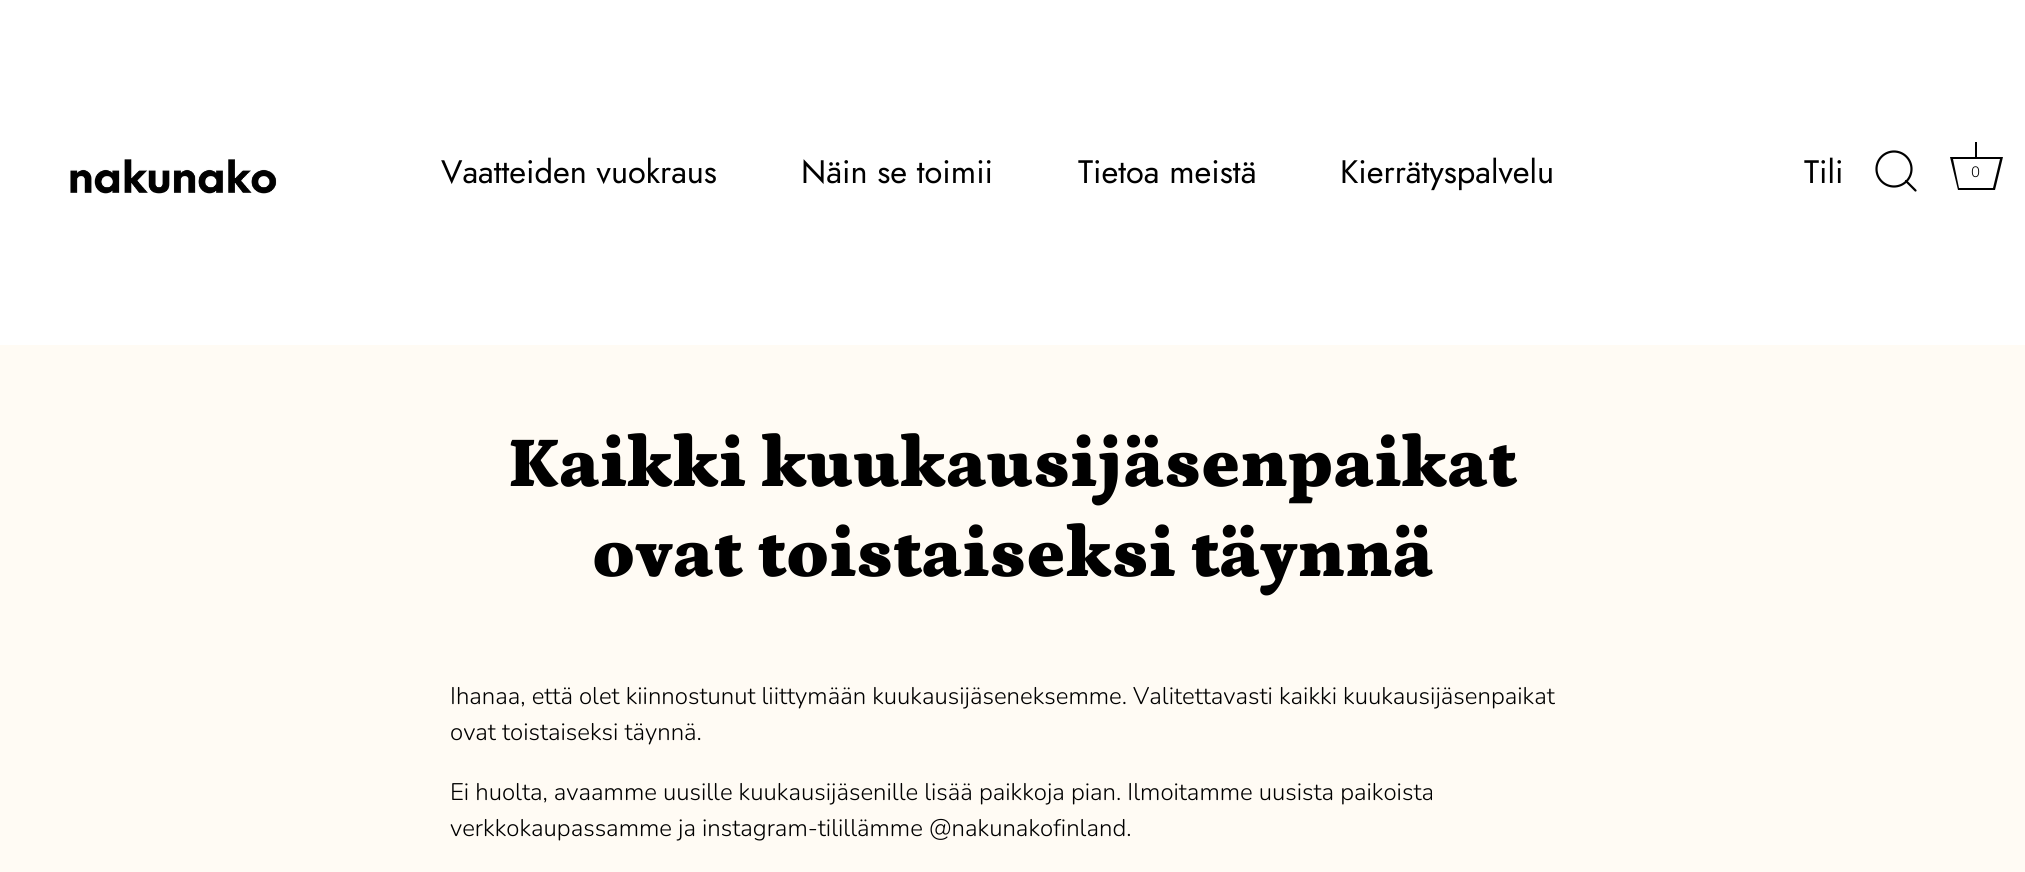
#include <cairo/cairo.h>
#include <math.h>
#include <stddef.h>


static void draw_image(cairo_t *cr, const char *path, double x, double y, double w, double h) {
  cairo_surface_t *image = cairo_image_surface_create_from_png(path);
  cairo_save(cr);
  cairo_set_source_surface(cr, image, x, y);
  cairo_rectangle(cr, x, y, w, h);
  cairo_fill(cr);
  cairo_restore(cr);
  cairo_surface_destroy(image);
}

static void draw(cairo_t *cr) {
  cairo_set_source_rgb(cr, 1, 251 / 255.0, 244 / 255.0);
  cairo_paint(cr);
  cairo_set_source_rgb(cr, 1, 1, 1);
  cairo_rectangle(cr, 0, 0, 2025, 345);
  cairo_fill(cr);
  draw_image(cr, "images/1.png", 70, 159, 207, 35);
  cairo_arc(cr, 1894, 169, 17.5, 0, 2 * M_PI);
  cairo_set_source_rgb(cr, 0, 0, 0);
  cairo_set_line_width(cr, 2.2);
  cairo_stroke(cr);
  cairo_new_path(cr);
  cairo_move_to(cr, 1915.5, 190.5);
  cairo_line_to(cr, 1906, 181);
  cairo_set_line_cap(cr, CAIRO_LINE_CAP_ROUND);
  cairo_set_line_join(cr, CAIRO_LINE_JOIN_ROUND);
  cairo_stroke(cr);
  cairo_rectangle(cr, 1975, 142, 2, 15);
  cairo_fill(cr);
  cairo_new_path(cr);
  cairo_move_to(cr, 2000, 159);
  cairo_line_to(cr, 1993, 188);
  cairo_line_to(cr, 1959, 188);
  cairo_line_to(cr, 1953, 159);
  cairo_line_to(cr, 2000, 159);
  cairo_move_to(cr, 2003, 157);
  cairo_line_to(cr, 1950, 157);
  cairo_line_to(cr, 1958, 190);
  cairo_line_to(cr, 1995, 190);
  cairo_close_path(cr);
  cairo_fill(cr);
  cairo_select_font_face(cr, "Jost", CAIRO_FONT_SLANT_NORMAL, CAIRO_FONT_WEIGHT_NORMAL);
  cairo_set_font_size(cr, 32.5);
  cairo_move_to(cr, 441, 183);
  cairo_show_text(cr, "Vaatteiden vuokraus");
  cairo_move_to(cr, 801, 183);
  cairo_show_text(cr, "Näin se toimii");
  cairo_move_to(cr, 1078, 183);
  cairo_show_text(cr, "Tietoa meistä");
  cairo_move_to(cr, 1340, 183);
  cairo_show_text(cr, "Kierrätyspalvelu");
  cairo_move_to(cr, 1804, 183);
  cairo_show_text(cr, "Tili");
  cairo_select_font_face(cr, "Nunito Light", CAIRO_FONT_SLANT_NORMAL, CAIRO_FONT_WEIGHT_NORMAL);
  cairo_set_font_size(cr, 15);
  cairo_move_to(cr, 1971, 177);
  cairo_show_text(cr, "0");
  cairo_select_font_face(cr, "Petrona Black", CAIRO_FONT_SLANT_NORMAL, CAIRO_FONT_WEIGHT_NORMAL);
  cairo_set_font_size(cr, 72);
  cairo_move_to(cr, 508, 486);
  cairo_show_text(cr, "Kaikki kuukausijäsenpaikat");
  cairo_move_to(cr, 592, 576);
  cairo_show_text(cr, "ovat toistaiseksi täynnä");
  cairo_select_font_face(cr, "Nunito Light", CAIRO_FONT_SLANT_NORMAL, CAIRO_FONT_WEIGHT_NORMAL);
  cairo_set_font_size(cr, 24);
  cairo_move_to(cr, 450, 704);
  cairo_show_text(cr, "Ihanaa, että olet kiinnostunut liittymään kuukausijäseneksemme. Valitettavasti kaikki kuukausijäsenpaikat");
  cairo_move_to(cr, 450, 740);
  cairo_show_text(cr, "ovat toistaiseksi täynnä.");
  cairo_move_to(cr, 450, 800);
  cairo_show_text(cr, "Ei huolta, avaamme uusille kuukausijäsenille lisää paikkoja pian. Ilmoitamme uusista paikoista");
  cairo_move_to(cr, 450, 836);
  cairo_show_text(cr, "verkkokaupassamme ja instagram-tilillämme @nakunakofinland.");
}

int main(void) {
  cairo_surface_t *surface = cairo_image_surface_create(CAIRO_FORMAT_RGB24, 2025, 872);
  cairo_t *cr = cairo_create(surface);
  cairo_font_options_t *options = cairo_font_options_create();
  cairo_font_options_set_hint_metrics(options, CAIRO_HINT_METRICS_OFF);
  cairo_font_options_set_hint_style(options, CAIRO_HINT_STYLE_NONE);
  cairo_set_font_options(cr, options);
  cairo_set_miter_limit(cr, 4);
  draw(cr);
  cairo_surface_write_to_png(surface, "out.png");
  cairo_font_options_destroy(options);
  cairo_destroy(cr);
  cairo_surface_destroy(surface);
  return 0;
}
